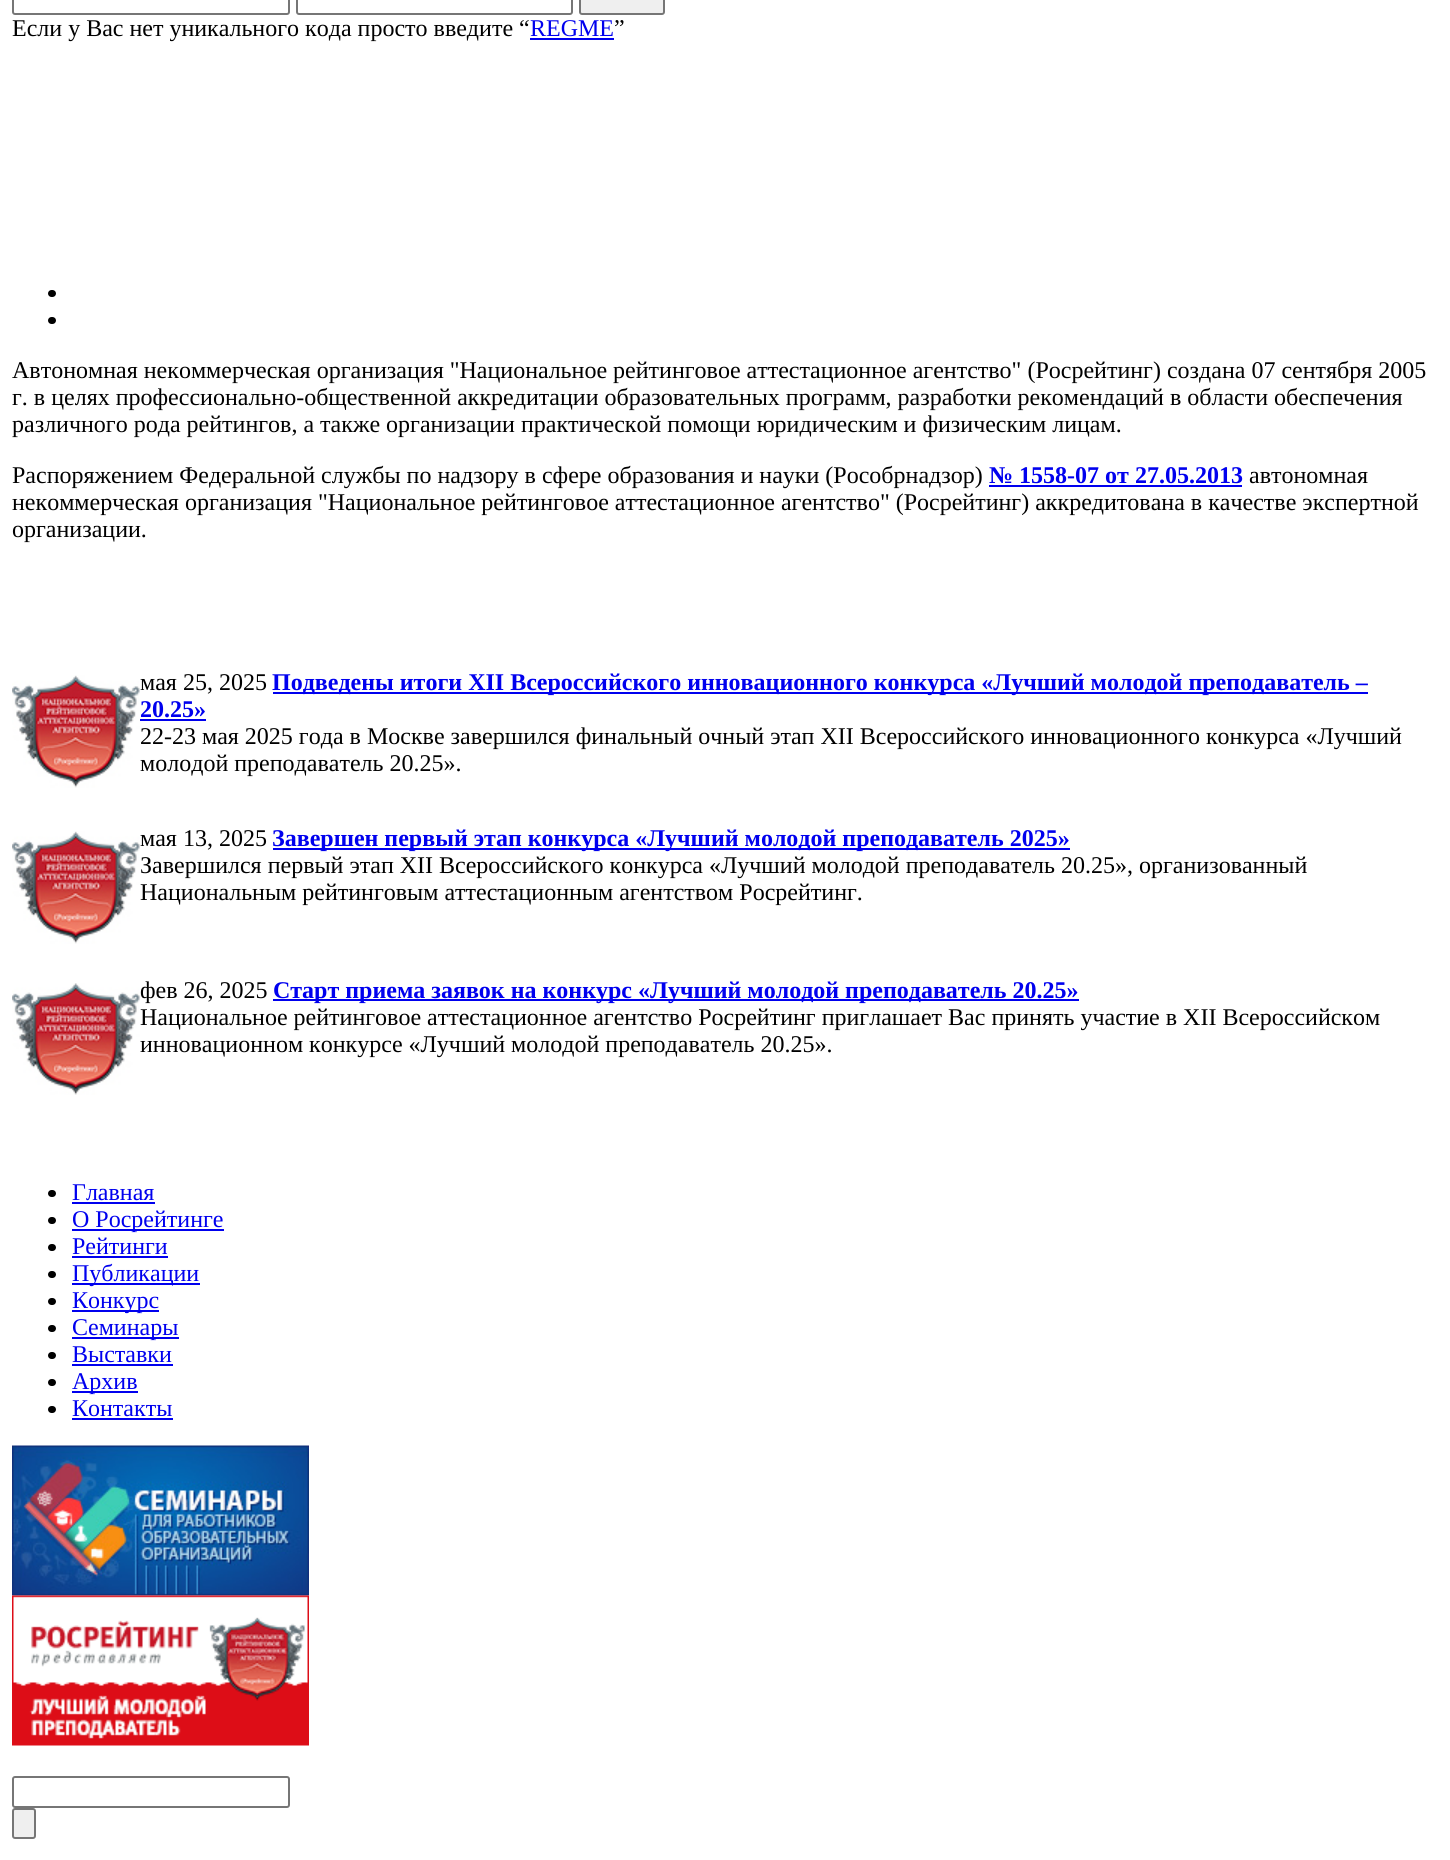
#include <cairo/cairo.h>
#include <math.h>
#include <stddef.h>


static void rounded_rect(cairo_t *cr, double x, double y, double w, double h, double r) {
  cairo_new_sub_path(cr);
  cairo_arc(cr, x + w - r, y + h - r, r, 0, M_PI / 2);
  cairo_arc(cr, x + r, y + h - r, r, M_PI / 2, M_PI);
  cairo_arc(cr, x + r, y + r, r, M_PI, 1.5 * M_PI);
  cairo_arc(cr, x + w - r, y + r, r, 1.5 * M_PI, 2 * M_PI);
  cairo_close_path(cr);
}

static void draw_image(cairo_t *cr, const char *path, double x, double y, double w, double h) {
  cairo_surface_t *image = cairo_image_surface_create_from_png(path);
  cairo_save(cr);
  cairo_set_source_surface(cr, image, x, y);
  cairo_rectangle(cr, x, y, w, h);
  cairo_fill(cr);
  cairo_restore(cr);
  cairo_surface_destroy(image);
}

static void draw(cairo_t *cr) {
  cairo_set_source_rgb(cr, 1, 1, 1);
  cairo_paint(cr);
  rounded_rect(cr, 13, -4, 276, 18, 2);
  cairo_set_source_rgb(cr, 118 / 255.0, 118 / 255.0, 118 / 255.0);
  cairo_stroke(cr);
  rounded_rect(cr, 297, -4, 275, 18, 2);
  cairo_stroke(cr);
  cairo_set_source_rgb(cr, 239 / 255.0, 239 / 255.0, 239 / 255.0);
  rounded_rect(cr, 580, -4, 84, 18, 2);
  cairo_fill_preserve(cr);
  cairo_set_source_rgb(cr, 118 / 255.0, 118 / 255.0, 118 / 255.0);
  cairo_stroke(cr);
  cairo_set_source_rgb(cr, 0, 0, 238 / 255.0);
  cairo_rectangle(cr, 530, 38, 84, 2);
  cairo_fill(cr);
  cairo_set_source_rgb(cr, 0, 0, 0);
  rounded_rect(cr, 48, 290, 8, 7, 3.5);
  cairo_fill(cr);
  rounded_rect(cr, 48, 317, 8, 7, 3.5);
  cairo_fill(cr);
  cairo_set_source_rgb(cr, 0, 0, 238 / 255.0);
  cairo_rectangle(cr, 989, 485, 253, 2);
  cairo_fill(cr);
  draw_image(cr, "images/1.png", 12, 675, 128, 113);
  cairo_rectangle(cr, 273, 692, 1095, 2);
  cairo_fill(cr);
  cairo_rectangle(cr, 140, 719, 66, 2);
  cairo_fill(cr);
  draw_image(cr, "images/1.png", 12, 831, 128, 113);
  cairo_rectangle(cr, 273, 848, 797, 2);
  cairo_fill(cr);
  draw_image(cr, "images/2.png", 12, 983, 128, 112);
  cairo_rectangle(cr, 273, 999, 806, 2);
  cairo_fill(cr);
  cairo_set_source_rgb(cr, 0, 0, 0);
  rounded_rect(cr, 48, 1190, 8, 7, 3.5);
  cairo_fill(cr);
  cairo_set_source_rgb(cr, 0, 0, 238 / 255.0);
  cairo_rectangle(cr, 72, 1202, 83, 2);
  cairo_fill(cr);
  cairo_set_source_rgb(cr, 0, 0, 0);
  rounded_rect(cr, 48, 1217, 8, 7, 3.5);
  cairo_fill(cr);
  cairo_set_source_rgb(cr, 0, 0, 238 / 255.0);
  cairo_rectangle(cr, 72, 1229, 152, 2);
  cairo_fill(cr);
  cairo_set_source_rgb(cr, 0, 0, 0);
  rounded_rect(cr, 48, 1244, 8, 7, 3.5);
  cairo_fill(cr);
  cairo_set_source_rgb(cr, 0, 0, 238 / 255.0);
  cairo_rectangle(cr, 72, 1256, 96, 2);
  cairo_fill(cr);
  cairo_set_source_rgb(cr, 0, 0, 0);
  rounded_rect(cr, 48, 1271, 8, 7, 3.5);
  cairo_fill(cr);
  cairo_set_source_rgb(cr, 0, 0, 238 / 255.0);
  cairo_rectangle(cr, 72, 1283, 128, 2);
  cairo_fill(cr);
  cairo_set_source_rgb(cr, 0, 0, 0);
  rounded_rect(cr, 48, 1298, 8, 7, 3.5);
  cairo_fill(cr);
  cairo_set_source_rgb(cr, 0, 0, 238 / 255.0);
  cairo_rectangle(cr, 72, 1310, 87, 2);
  cairo_fill(cr);
  cairo_set_source_rgb(cr, 0, 0, 0);
  rounded_rect(cr, 48, 1325, 8, 7, 3.5);
  cairo_fill(cr);
  cairo_set_source_rgb(cr, 0, 0, 238 / 255.0);
  cairo_rectangle(cr, 72, 1337, 107, 2);
  cairo_fill(cr);
  cairo_set_source_rgb(cr, 0, 0, 0);
  rounded_rect(cr, 48, 1352, 8, 7, 3.5);
  cairo_fill(cr);
  cairo_set_source_rgb(cr, 0, 0, 238 / 255.0);
  cairo_rectangle(cr, 72, 1364, 101, 2);
  cairo_fill(cr);
  cairo_set_source_rgb(cr, 0, 0, 0);
  rounded_rect(cr, 48, 1379, 8, 7, 3.5);
  cairo_fill(cr);
  cairo_set_source_rgb(cr, 0, 0, 238 / 255.0);
  cairo_rectangle(cr, 72, 1391, 66, 2);
  cairo_fill(cr);
  cairo_set_source_rgb(cr, 0, 0, 0);
  rounded_rect(cr, 48, 1406, 8, 7, 3.5);
  cairo_fill(cr);
  cairo_set_source_rgb(cr, 0, 0, 238 / 255.0);
  cairo_rectangle(cr, 72, 1418, 101, 2);
  cairo_fill(cr);
  draw_image(cr, "images/3.png", 12, 1445, 297, 151);
  draw_image(cr, "images/4.png", 12, 1595, 297, 151);
  rounded_rect(cr, 13, 1777, 276, 30, 2);
  cairo_set_source_rgb(cr, 118 / 255.0, 118 / 255.0, 118 / 255.0);
  cairo_stroke(cr);
  cairo_set_source_rgb(cr, 239 / 255.0, 239 / 255.0, 239 / 255.0);
  rounded_rect(cr, 13, 1809, 22, 29, 2);
  cairo_fill_preserve(cr);
  cairo_set_source_rgb(cr, 118 / 255.0, 118 / 255.0, 118 / 255.0);
  cairo_stroke(cr);
  cairo_select_font_face(cr, "Liberation Serif", CAIRO_FONT_SLANT_NORMAL, CAIRO_FONT_WEIGHT_NORMAL);
  cairo_set_font_size(cr, 24);
  cairo_set_source_rgb(cr, 0, 0, 0);
  cairo_move_to(cr, 12, 36);
  cairo_show_text(cr, "Если у Вас нет уникального кода просто введите “");
  cairo_set_source_rgb(cr, 0, 0, 238 / 255.0);
  cairo_move_to(cr, 530, 36);
  cairo_show_text(cr, "REGME");
  cairo_set_source_rgb(cr, 0, 0, 0);
  cairo_move_to(cr, 614, 36);
  cairo_show_text(cr, "”");
  cairo_move_to(cr, 12, 378);
  cairo_show_text(cr, "Автономная некоммерческая организация \"Национальное рейтинговое аттестационное агентство\" (Росрейтинг) создана 07 сентября 2005");
  cairo_move_to(cr, 12, 405);
  cairo_show_text(cr, "г. в целях профессионально-общественной аккредитации образовательных программ, разработки рекомендаций в области обеспечения");
  cairo_move_to(cr, 12, 432);
  cairo_show_text(cr, "различного рода рейтингов, а также организации практической помощи юридическим и физическим лицам.");
  cairo_move_to(cr, 12, 483);
  cairo_show_text(cr, "Распоряжением Федеральной службы по надзору в сфере образования и науки (Рособрнадзор)");
  cairo_select_font_face(cr, "Liberation Serif", CAIRO_FONT_SLANT_NORMAL, CAIRO_FONT_WEIGHT_BOLD);
  cairo_set_source_rgb(cr, 0, 0, 238 / 255.0);
  cairo_move_to(cr, 989, 483);
  cairo_show_text(cr, "№ 1558-07 от 27.05.2013");
  cairo_select_font_face(cr, "Liberation Serif", CAIRO_FONT_SLANT_NORMAL, CAIRO_FONT_WEIGHT_NORMAL);
  cairo_set_source_rgb(cr, 0, 0, 0);
  cairo_move_to(cr, 1249, 483);
  cairo_show_text(cr, "автономная");
  cairo_move_to(cr, 12, 510);
  cairo_show_text(cr, "некоммерческая организация \"Национальное рейтинговое аттестационное агентство\" (Росрейтинг) аккредитована в качестве экспертной");
  cairo_move_to(cr, 12, 537);
  cairo_show_text(cr, "организации.");
  cairo_move_to(cr, 140, 690);
  cairo_show_text(cr, "мая 25, 2025");
  cairo_select_font_face(cr, "Liberation Serif", CAIRO_FONT_SLANT_NORMAL, CAIRO_FONT_WEIGHT_BOLD);
  cairo_set_source_rgb(cr, 0, 0, 238 / 255.0);
  cairo_move_to(cr, 272, 690);
  cairo_show_text(cr, "Подведены итоги XII Всероссийского инновационного конкурса «Лучший молодой преподаватель –");
  cairo_move_to(cr, 140, 717);
  cairo_show_text(cr, "20.25»");
  cairo_select_font_face(cr, "Liberation Serif", CAIRO_FONT_SLANT_NORMAL, CAIRO_FONT_WEIGHT_NORMAL);
  cairo_set_source_rgb(cr, 0, 0, 0);
  cairo_move_to(cr, 140, 744);
  cairo_show_text(cr, "22-23 мая 2025 года в Москве завершился финальный очный этап XII Всероссийского инновационного конкурса «Лучший");
  cairo_move_to(cr, 140, 771);
  cairo_show_text(cr, "молодой преподаватель 20.25».");
  cairo_move_to(cr, 140, 846);
  cairo_show_text(cr, "мая 13, 2025");
  cairo_select_font_face(cr, "Liberation Serif", CAIRO_FONT_SLANT_NORMAL, CAIRO_FONT_WEIGHT_BOLD);
  cairo_set_source_rgb(cr, 0, 0, 238 / 255.0);
  cairo_move_to(cr, 272, 846);
  cairo_show_text(cr, "Завершен первый этап конкурса «Лучший молодой преподаватель 2025»");
  cairo_select_font_face(cr, "Liberation Serif", CAIRO_FONT_SLANT_NORMAL, CAIRO_FONT_WEIGHT_NORMAL);
  cairo_set_source_rgb(cr, 0, 0, 0);
  cairo_move_to(cr, 140, 873);
  cairo_show_text(cr, "Завершился первый этап XII Всероссийского конкурса «Лучший молодой преподаватель 20.25», организованный");
  cairo_move_to(cr, 140, 900);
  cairo_show_text(cr, "Национальным рейтинговым аттестационным агентством Росрейтинг.");
  cairo_move_to(cr, 140, 998);
  cairo_show_text(cr, "фев 26, 2025");
  cairo_select_font_face(cr, "Liberation Serif", CAIRO_FONT_SLANT_NORMAL, CAIRO_FONT_WEIGHT_BOLD);
  cairo_set_source_rgb(cr, 0, 0, 238 / 255.0);
  cairo_move_to(cr, 273, 998);
  cairo_show_text(cr, "Старт приема заявок на конкурс «Лучший молодой преподаватель 20.25»");
  cairo_select_font_face(cr, "Liberation Serif", CAIRO_FONT_SLANT_NORMAL, CAIRO_FONT_WEIGHT_NORMAL);
  cairo_set_source_rgb(cr, 0, 0, 0);
  cairo_move_to(cr, 140, 1025);
  cairo_show_text(cr, "Национальное рейтинговое аттестационное агентство Росрейтинг приглашает Вас принять участие в XII Всероссийском");
  cairo_move_to(cr, 140, 1052);
  cairo_show_text(cr, "инновационном конкурсе «Лучший молодой преподаватель 20.25».");
  cairo_set_source_rgb(cr, 0, 0, 238 / 255.0);
  cairo_move_to(cr, 72, 1200);
  cairo_show_text(cr, "Главная");
  cairo_move_to(cr, 72, 1227);
  cairo_show_text(cr, "О Росрейтинге");
  cairo_move_to(cr, 72, 1254);
  cairo_show_text(cr, "Рейтинги");
  cairo_move_to(cr, 72, 1281);
  cairo_show_text(cr, "Публикации");
  cairo_move_to(cr, 72, 1308);
  cairo_show_text(cr, "Конкурс");
  cairo_move_to(cr, 72, 1335);
  cairo_show_text(cr, "Семинары");
  cairo_move_to(cr, 72, 1362);
  cairo_show_text(cr, "Выставки");
  cairo_move_to(cr, 72, 1389);
  cairo_show_text(cr, "Архив");
  cairo_move_to(cr, 72, 1416);
  cairo_show_text(cr, "Контакты");
}

int main(void) {
  cairo_surface_t *surface = cairo_image_surface_create(CAIRO_FORMAT_RGB24, 1450, 1860);
  cairo_t *cr = cairo_create(surface);
  cairo_font_options_t *options = cairo_font_options_create();
  cairo_font_options_set_hint_metrics(options, CAIRO_HINT_METRICS_OFF);
  cairo_font_options_set_hint_style(options, CAIRO_HINT_STYLE_NONE);
  cairo_set_font_options(cr, options);
  cairo_set_miter_limit(cr, 4);
  draw(cr);
  cairo_surface_write_to_png(surface, "out.png");
  cairo_font_options_destroy(options);
  cairo_destroy(cr);
  cairo_surface_destroy(surface);
  return 0;
}
